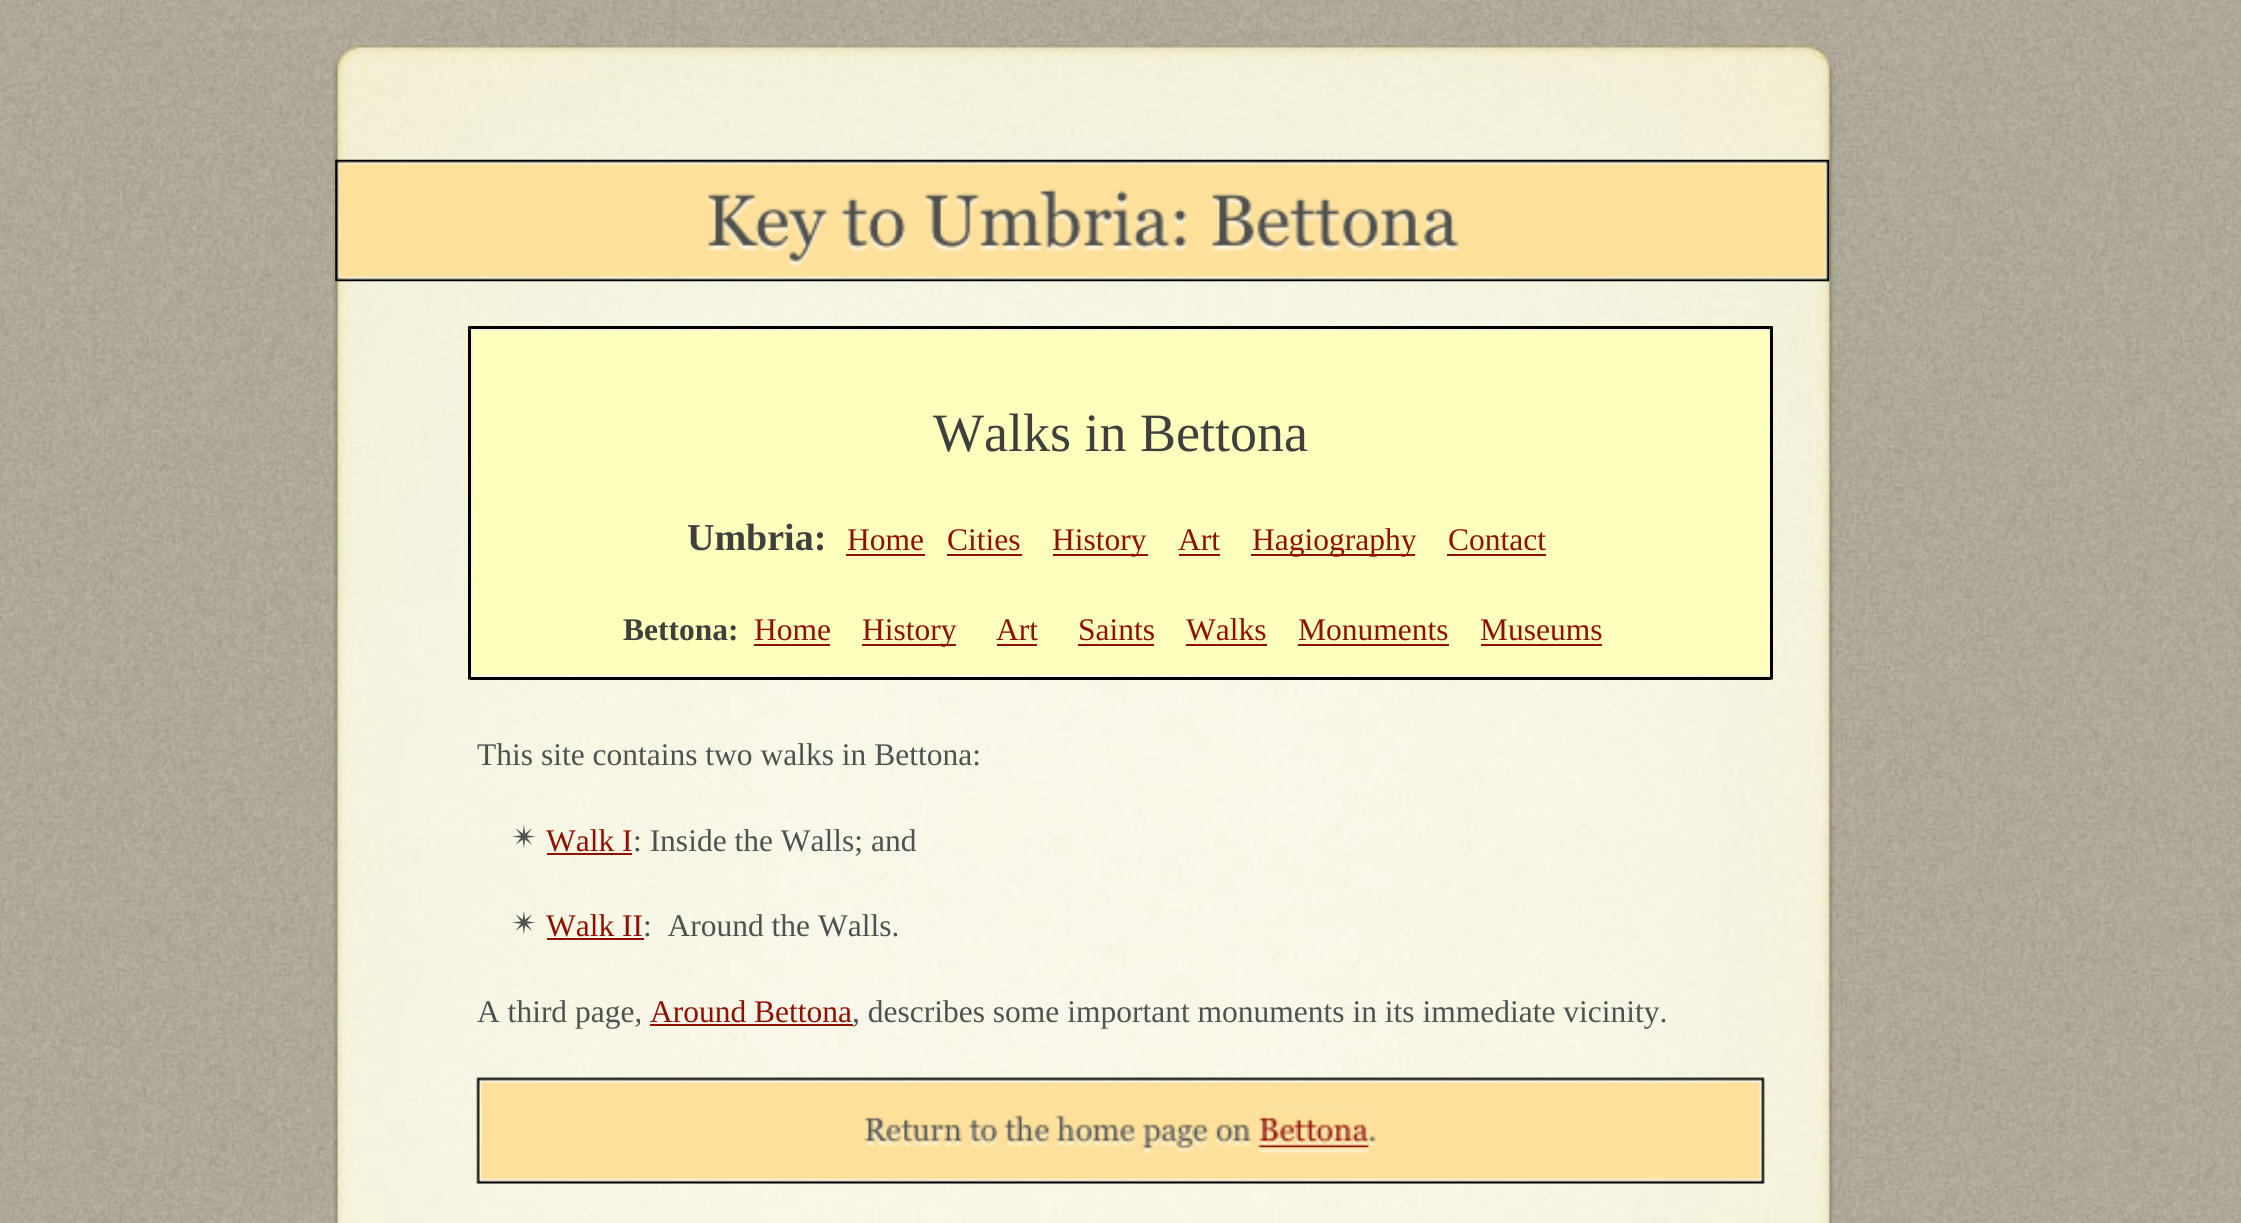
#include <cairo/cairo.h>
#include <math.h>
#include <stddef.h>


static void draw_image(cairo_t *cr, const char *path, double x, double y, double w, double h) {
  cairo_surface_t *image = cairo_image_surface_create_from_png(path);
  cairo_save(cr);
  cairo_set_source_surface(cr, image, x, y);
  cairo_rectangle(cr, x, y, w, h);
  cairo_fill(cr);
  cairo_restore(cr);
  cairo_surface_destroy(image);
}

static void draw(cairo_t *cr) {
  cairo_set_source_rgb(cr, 1, 1, 1);
  cairo_paint(cr);
  draw_image(cr, "images/1.png", 0, 0, 2241, 1223);
  draw_image(cr, "images/2.png", 333, 603, 1575, 498);
  draw_image(cr, "images/3.png", 333, 45, 1575, 558);
  draw_image(cr, "images/4.png", 335, 159, 1495, 123);
  cairo_set_source_rgb(cr, 1, 1, 190 / 255.0);
  cairo_rectangle(cr, 473, 331, 1296, 344);
  cairo_fill(cr);
  draw_image(cr, "images/5.png", 468, 326, 2, 2);
  cairo_set_source_rgb(cr, 0, 0, 0);
  cairo_rectangle(cr, 468, 328, 3, 350);
  cairo_fill(cr);
  cairo_rectangle(cr, 470, 326, 1301, 3);
  cairo_fill(cr);
  draw_image(cr, "images/6.png", 1771, 326, 2, 2);
  cairo_set_source_rgb(cr, 144 / 255.0, 16 / 255.0, 0);
  cairo_rectangle(cr, 846, 554, 79, 2);
  cairo_fill(cr);
  cairo_rectangle(cr, 947, 554, 75, 2);
  cairo_fill(cr);
  cairo_rectangle(cr, 1053, 554, 95, 2);
  cairo_fill(cr);
  cairo_rectangle(cr, 1179, 554, 41, 2);
  cairo_fill(cr);
  cairo_rectangle(cr, 1251, 554, 164, 2);
  cairo_fill(cr);
  cairo_rectangle(cr, 1447, 554, 99, 2);
  cairo_fill(cr);
  cairo_rectangle(cr, 754, 644, 76, 2);
  cairo_fill(cr);
  cairo_rectangle(cr, 862, 644, 94, 2);
  cairo_fill(cr);
  cairo_rectangle(cr, 997, 644, 40, 2);
  cairo_fill(cr);
  cairo_rectangle(cr, 1078, 644, 76, 2);
  cairo_fill(cr);
  cairo_rectangle(cr, 1186, 644, 81, 2);
  cairo_fill(cr);
  cairo_rectangle(cr, 1298, 644, 151, 2);
  cairo_fill(cr);
  cairo_rectangle(cr, 1481, 644, 121, 2);
  cairo_fill(cr);
  cairo_set_source_rgb(cr, 0, 0, 0);
  cairo_rectangle(cr, 1770, 328, 3, 350);
  cairo_fill(cr);
  draw_image(cr, "images/7.png", 468, 678, 2, 2);
  cairo_rectangle(cr, 470, 677, 1301, 3);
  cairo_fill(cr);
  draw_image(cr, "images/8.png", 1771, 678, 2, 2);
  cairo_set_source_rgb(cr, 144 / 255.0, 16 / 255.0, 0);
  cairo_rectangle(cr, 547, 853, 85, 2);
  cairo_fill(cr);
  cairo_rectangle(cr, 547, 938, 97, 2);
  cairo_fill(cr);
  cairo_rectangle(cr, 650, 1024, 203, 2);
  cairo_fill(cr);
  draw_image(cr, "images/11.png", 333, 1100, 1575, 123);
  draw_image(cr, "images/10.png", 1257, 1111, 114, 37);
  draw_image(cr, "images/9.png", 476, 1077, 1289, 107);
  cairo_select_font_face(cr, "Liberation Serif", CAIRO_FONT_SLANT_NORMAL, CAIRO_FONT_WEIGHT_NORMAL);
  cairo_set_font_size(cr, 54);
  cairo_set_source_rgb(cr, 63 / 255.0, 64 / 255.0, 61 / 255.0);
  cairo_move_to(cr, 933, 451);
  cairo_show_text(cr, "Walks in Bettona");
  cairo_select_font_face(cr, "Liberation Serif", CAIRO_FONT_SLANT_NORMAL, CAIRO_FONT_WEIGHT_BOLD);
  cairo_set_font_size(cr, 38);
  cairo_move_to(cr, 687, 550);
  cairo_show_text(cr, "Umbria:");
  cairo_select_font_face(cr, "Liberation Serif", CAIRO_FONT_SLANT_NORMAL, CAIRO_FONT_WEIGHT_NORMAL);
  cairo_set_font_size(cr, 31.5);
  cairo_set_source_rgb(cr, 144 / 255.0, 16 / 255.0, 0);
  cairo_move_to(cr, 847, 550);
  cairo_show_text(cr, "Home");
  cairo_move_to(cr, 947, 550);
  cairo_show_text(cr, "Cities");
  cairo_move_to(cr, 1052, 550);
  cairo_show_text(cr, "History");
  cairo_move_to(cr, 1178, 550);
  cairo_show_text(cr, "Art");
  cairo_move_to(cr, 1252, 550);
  cairo_show_text(cr, "Hagiography");
  cairo_move_to(cr, 1448, 550);
  cairo_show_text(cr, "Contact");
  cairo_select_font_face(cr, "Liberation Serif", CAIRO_FONT_SLANT_NORMAL, CAIRO_FONT_WEIGHT_BOLD);
  cairo_set_source_rgb(cr, 63 / 255.0, 64 / 255.0, 61 / 255.0);
  cairo_move_to(cr, 623, 640);
  cairo_show_text(cr, "Bettona:");
  cairo_select_font_face(cr, "Liberation Serif", CAIRO_FONT_SLANT_NORMAL, CAIRO_FONT_WEIGHT_NORMAL);
  cairo_set_source_rgb(cr, 144 / 255.0, 16 / 255.0, 0);
  cairo_move_to(cr, 754, 640);
  cairo_show_text(cr, "Home");
  cairo_move_to(cr, 862, 640);
  cairo_show_text(cr, "History");
  cairo_move_to(cr, 996, 640);
  cairo_show_text(cr, "Art");
  cairo_move_to(cr, 1078, 640);
  cairo_show_text(cr, "Saints");
  cairo_move_to(cr, 1186, 640);
  cairo_show_text(cr, "Walks");
  cairo_move_to(cr, 1298, 640);
  cairo_show_text(cr, "Monuments");
  cairo_move_to(cr, 1480, 640);
  cairo_show_text(cr, "Museums");
  cairo_set_source_rgb(cr, 81 / 255.0, 81 / 255.0, 81 / 255.0);
  cairo_move_to(cr, 477, 765);
  cairo_show_text(cr, "This site contains two walks in Bettona:");
  cairo_select_font_face(cr, "DejaVu Sans", CAIRO_FONT_SLANT_NORMAL, CAIRO_FONT_WEIGHT_NORMAL);
  cairo_move_to(cr, 511, 848);
  cairo_show_text(cr, "✴");
  cairo_select_font_face(cr, "Liberation Serif", CAIRO_FONT_SLANT_NORMAL, CAIRO_FONT_WEIGHT_NORMAL);
  cairo_set_source_rgb(cr, 144 / 255.0, 16 / 255.0, 0);
  cairo_move_to(cr, 546, 851);
  cairo_show_text(cr, "Walk I");
  cairo_set_source_rgb(cr, 81 / 255.0, 81 / 255.0, 81 / 255.0);
  cairo_move_to(cr, 633, 851);
  cairo_show_text(cr, ": Inside the Walls; and");
  cairo_select_font_face(cr, "DejaVu Sans", CAIRO_FONT_SLANT_NORMAL, CAIRO_FONT_WEIGHT_NORMAL);
  cairo_move_to(cr, 511, 934);
  cairo_show_text(cr, "✴");
  cairo_select_font_face(cr, "Liberation Serif", CAIRO_FONT_SLANT_NORMAL, CAIRO_FONT_WEIGHT_NORMAL);
  cairo_set_source_rgb(cr, 144 / 255.0, 16 / 255.0, 0);
  cairo_move_to(cr, 546, 936);
  cairo_show_text(cr, "Walk II");
  cairo_set_source_rgb(cr, 81 / 255.0, 81 / 255.0, 81 / 255.0);
  cairo_move_to(cr, 643, 936);
  cairo_show_text(cr, ":  Around the Walls.");
  cairo_move_to(cr, 477, 1022);
  cairo_show_text(cr, "A third page,");
  cairo_set_source_rgb(cr, 144 / 255.0, 16 / 255.0, 0);
  cairo_move_to(cr, 650, 1022);
  cairo_show_text(cr, "Around Bettona");
  cairo_set_source_rgb(cr, 81 / 255.0, 81 / 255.0, 81 / 255.0);
  cairo_move_to(cr, 852, 1022);
  cairo_show_text(cr, ", describes some important monuments in its immediate vicinity.");
}

int main(void) {
  cairo_surface_t *surface = cairo_image_surface_create(CAIRO_FORMAT_RGB24, 2241, 1223);
  cairo_t *cr = cairo_create(surface);
  cairo_font_options_t *options = cairo_font_options_create();
  cairo_font_options_set_hint_metrics(options, CAIRO_HINT_METRICS_OFF);
  cairo_font_options_set_hint_style(options, CAIRO_HINT_STYLE_NONE);
  cairo_set_font_options(cr, options);
  cairo_set_miter_limit(cr, 4);
  draw(cr);
  cairo_surface_write_to_png(surface, "out.png");
  cairo_font_options_destroy(options);
  cairo_destroy(cr);
  cairo_surface_destroy(surface);
  return 0;
}
